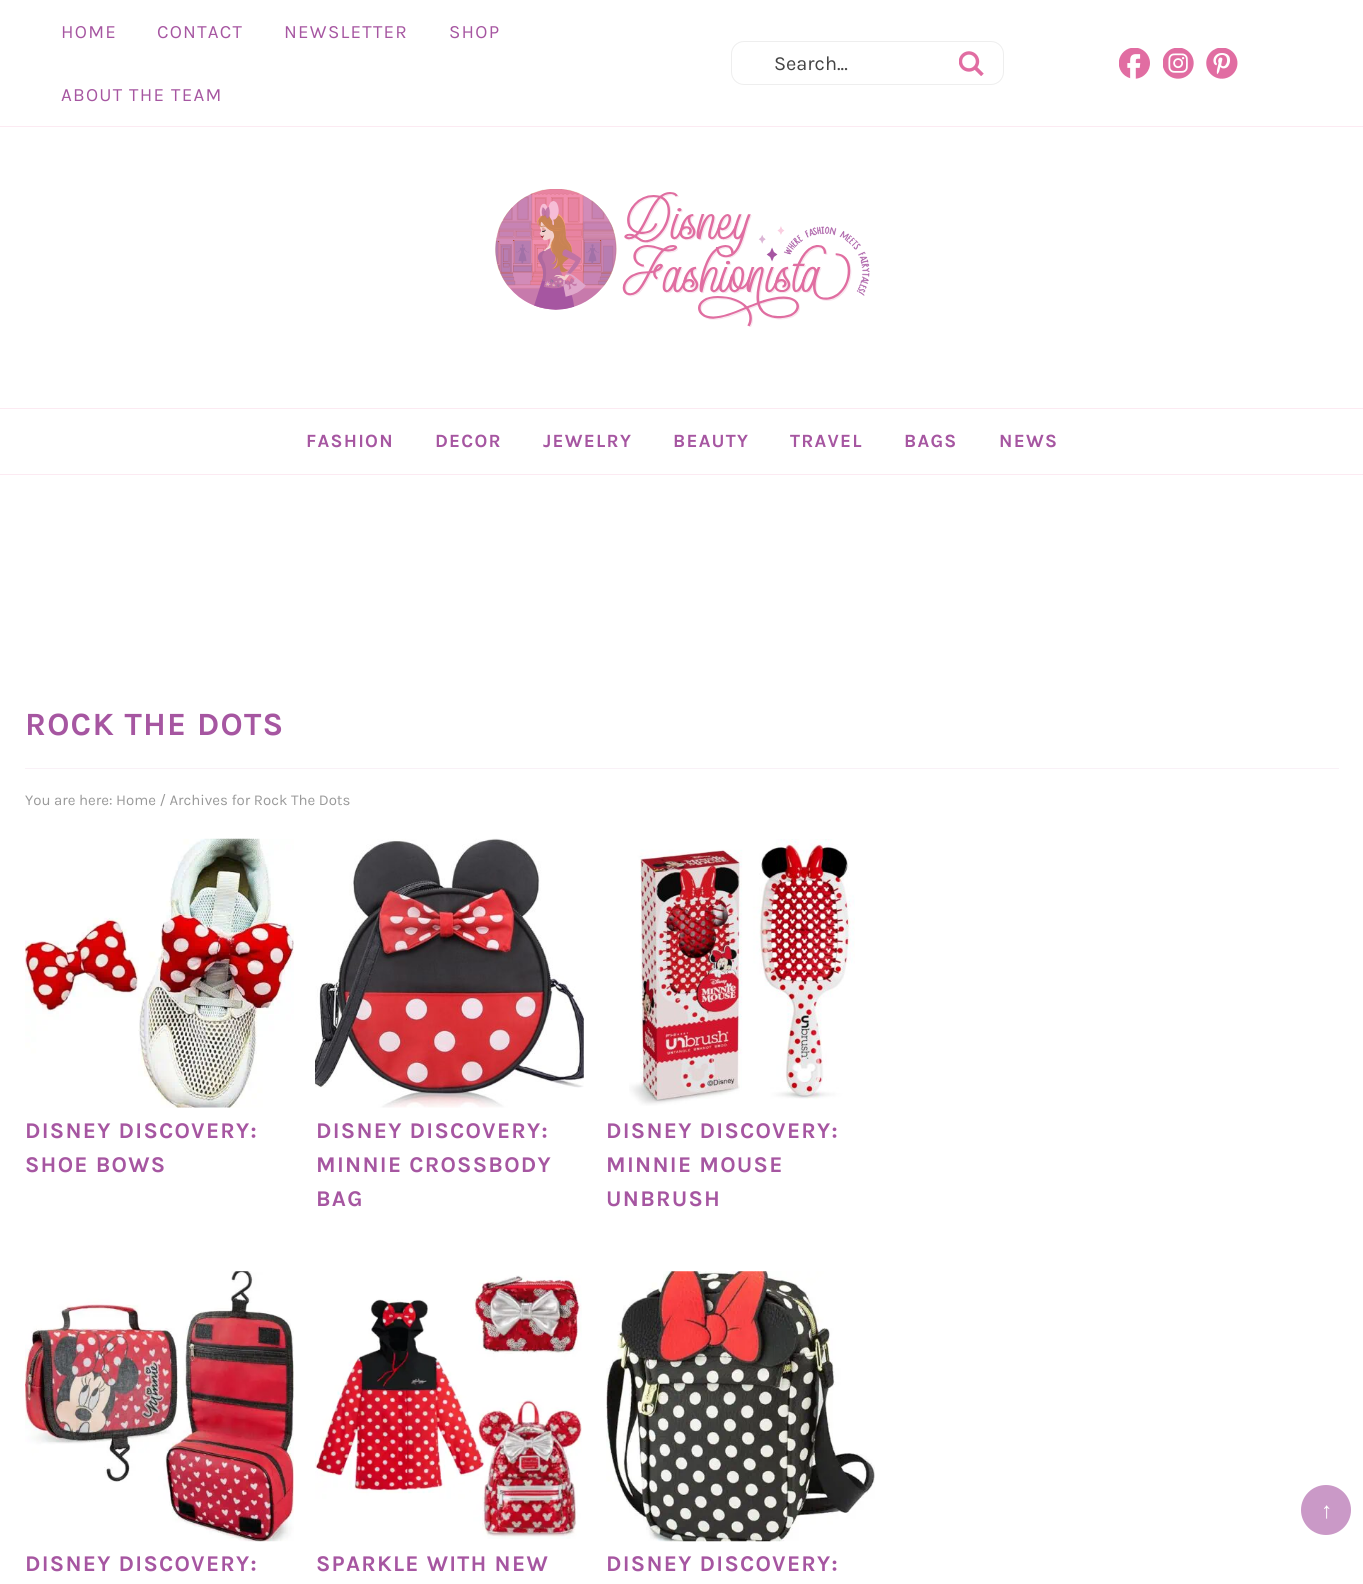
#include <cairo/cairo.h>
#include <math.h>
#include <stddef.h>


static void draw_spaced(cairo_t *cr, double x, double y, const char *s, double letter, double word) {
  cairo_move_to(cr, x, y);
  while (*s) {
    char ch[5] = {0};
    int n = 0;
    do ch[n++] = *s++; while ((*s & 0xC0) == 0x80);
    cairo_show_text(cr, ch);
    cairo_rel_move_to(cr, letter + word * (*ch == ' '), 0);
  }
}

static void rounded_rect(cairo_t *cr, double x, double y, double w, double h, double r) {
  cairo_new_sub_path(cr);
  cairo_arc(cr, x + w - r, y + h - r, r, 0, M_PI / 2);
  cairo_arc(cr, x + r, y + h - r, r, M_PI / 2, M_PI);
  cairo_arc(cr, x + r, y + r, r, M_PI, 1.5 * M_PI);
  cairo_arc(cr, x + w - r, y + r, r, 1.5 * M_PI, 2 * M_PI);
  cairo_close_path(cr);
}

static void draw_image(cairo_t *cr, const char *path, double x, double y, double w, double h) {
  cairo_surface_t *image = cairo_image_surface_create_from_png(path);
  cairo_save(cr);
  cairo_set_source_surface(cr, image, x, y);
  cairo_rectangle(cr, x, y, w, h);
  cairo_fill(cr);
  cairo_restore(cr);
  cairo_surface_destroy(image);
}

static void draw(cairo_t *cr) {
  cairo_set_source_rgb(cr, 1, 1, 1);
  cairo_paint(cr);
  cairo_set_source_rgb(cr, 252 / 255.0, 234 / 255.0, 242 / 255.0);
  cairo_rectangle(cr, 0, 126, 1363, 1);
  cairo_fill(cr);
  rounded_rect(cr, 731.5, 41.5, 272, 43, 12.5);
  cairo_set_source_rgb(cr, 238 / 255.0, 238 / 255.0, 238 / 255.0);
  cairo_set_line_width(cr, 1);
  cairo_stroke(cr);
  draw_image(cr, "images/1.png", 959, 51, 25, 25);
  draw_image(cr, "images/2.png", 1119, 48, 31, 31);
  draw_image(cr, "images/3.png", 1163, 48, 31, 31);
  draw_image(cr, "images/4.png", 1206, 48, 32, 31);
  draw_image(cr, "images/5.png", 495, 189, 375, 138);
  cairo_set_source_rgb(cr, 252 / 255.0, 234 / 255.0, 242 / 255.0);
  cairo_rectangle(cr, 0, 408, 1363, 1);
  cairo_fill(cr);
  cairo_rectangle(cr, 0, 474, 1363, 1);
  cairo_fill(cr);
  cairo_set_source_rgb(cr, 249 / 255.0, 241 / 255.0, 247 / 255.0);
  cairo_rectangle(cr, 25, 768, 1314, 1);
  cairo_fill(cr);
  draw_image(cr, "images/6.png", 25, 838, 269, 270);
  draw_image(cr, "images/7.png", 315, 838, 269, 270);
  draw_image(cr, "images/8.png", 629, 839, 226, 267);
  draw_image(cr, "images/9.png", 25, 1271, 269, 271);
  draw_image(cr, "images/10.png", 315, 1275, 267, 264);
  draw_image(cr, "images/11.png", 606, 1271, 269, 271);
  cairo_set_source_rgb(cr, 202 / 255.0, 153 / 255.0, 199 / 255.0);
  cairo_arc(cr, 1326, 1510, 25, 0, 2 * M_PI);
  cairo_fill(cr);
  cairo_select_font_face(cr, "Karla", CAIRO_FONT_SLANT_NORMAL, CAIRO_FONT_WEIGHT_NORMAL);
  cairo_set_font_size(cr, 18.75);
  cairo_set_source_rgb(cr, 166 / 255.0, 86 / 255.0, 161 / 255.0);
  draw_spaced(cr, 61, 38, "HOME", 1.25, 0);
  draw_spaced(cr, 157, 38, "CONTACT", 1.25, 0);
  draw_spaced(cr, 284, 38, "NEWSLETTER", 1.25, 0);
  draw_spaced(cr, 449, 38, "SHOP", 1.25, 0);
  draw_spaced(cr, 61, 101, "ABOUT THE TEAM", 1.25, 0);
  cairo_set_font_size(cr, 20);
  cairo_set_source_rgb(cr, 68 / 255.0, 68 / 255.0, 68 / 255.0);
  cairo_move_to(cr, 774, 70);
  cairo_show_text(cr, "Search...");
  cairo_select_font_face(cr, "Karla", CAIRO_FONT_SLANT_NORMAL, CAIRO_FONT_WEIGHT_BOLD);
  cairo_set_font_size(cr, 18.75);
  cairo_set_source_rgb(cr, 166 / 255.0, 86 / 255.0, 161 / 255.0);
  draw_spaced(cr, 306, 447, "FASHION", 1.25, 0);
  draw_spaced(cr, 435, 447, "DECOR", 1.25, 0);
  draw_spaced(cr, 543, 447, "JEWELRY", 1.25, 0);
  draw_spaced(cr, 673, 447, "BEAUTY", 1.25, 0);
  draw_spaced(cr, 790, 447, "TRAVEL", 1.25, 0);
  draw_spaced(cr, 904, 447, "BAGS", 1.25, 0);
  draw_spaced(cr, 999, 447, "NEWS", 1.25, 0);
  cairo_set_font_size(cr, 32.5);
  draw_spaced(cr, 25, 735, "ROCK THE DOTS", 1.25, 0);
  cairo_select_font_face(cr, "Karla", CAIRO_FONT_SLANT_NORMAL, CAIRO_FONT_WEIGHT_NORMAL);
  cairo_set_font_size(cr, 15);
  cairo_set_source_rgb(cr, 153 / 255.0, 153 / 255.0, 153 / 255.0);
  cairo_move_to(cr, 25, 805);
  cairo_show_text(cr, "You are here: Home / Archives for Rock The Dots");
  cairo_select_font_face(cr, "Karla", CAIRO_FONT_SLANT_NORMAL, CAIRO_FONT_WEIGHT_BOLD);
  cairo_set_font_size(cr, 22.5);
  cairo_set_source_rgb(cr, 166 / 255.0, 86 / 255.0, 161 / 255.0);
  draw_spaced(cr, 25, 1138, "DISNEY DISCOVERY:", 1.25, 0);
  draw_spaced(cr, 25, 1172, "SHOE BOWS", 1.25, 0);
  draw_spaced(cr, 316, 1138, "DISNEY DISCOVERY:", 1.25, 0);
  draw_spaced(cr, 316, 1172, "MINNIE CROSSBODY", 1.25, 0);
  draw_spaced(cr, 316, 1206, "BAG", 1.25, 0);
  draw_spaced(cr, 606, 1138, "DISNEY DISCOVERY:", 1.25, 0);
  draw_spaced(cr, 606, 1172, "MINNIE MOUSE", 1.25, 0);
  draw_spaced(cr, 606, 1206, "UNBRUSH", 1.25, 0);
  draw_spaced(cr, 25, 1571, "DISNEY DISCOVERY:", 1.25, 0);
  draw_spaced(cr, 316, 1571, "SPARKLE WITH NEW", 1.25, 0);
  draw_spaced(cr, 606, 1571, "DISNEY DISCOVERY:", 1.25, 0);
  cairo_select_font_face(cr, "Liberation Serif", CAIRO_FONT_SLANT_NORMAL, CAIRO_FONT_WEIGHT_NORMAL);
  cairo_set_source_rgb(cr, 1, 1, 1);
  cairo_move_to(cr, 1321, 1518);
  cairo_show_text(cr, "↑");
}

int main(void) {
  cairo_surface_t *surface = cairo_image_surface_create(CAIRO_FORMAT_RGB24, 1363, 1584);
  cairo_t *cr = cairo_create(surface);
  cairo_font_options_t *options = cairo_font_options_create();
  cairo_font_options_set_hint_metrics(options, CAIRO_HINT_METRICS_OFF);
  cairo_font_options_set_hint_style(options, CAIRO_HINT_STYLE_NONE);
  cairo_set_font_options(cr, options);
  cairo_set_miter_limit(cr, 4);
  draw(cr);
  cairo_surface_write_to_png(surface, "out.png");
  cairo_font_options_destroy(options);
  cairo_destroy(cr);
  cairo_surface_destroy(surface);
  return 0;
}
